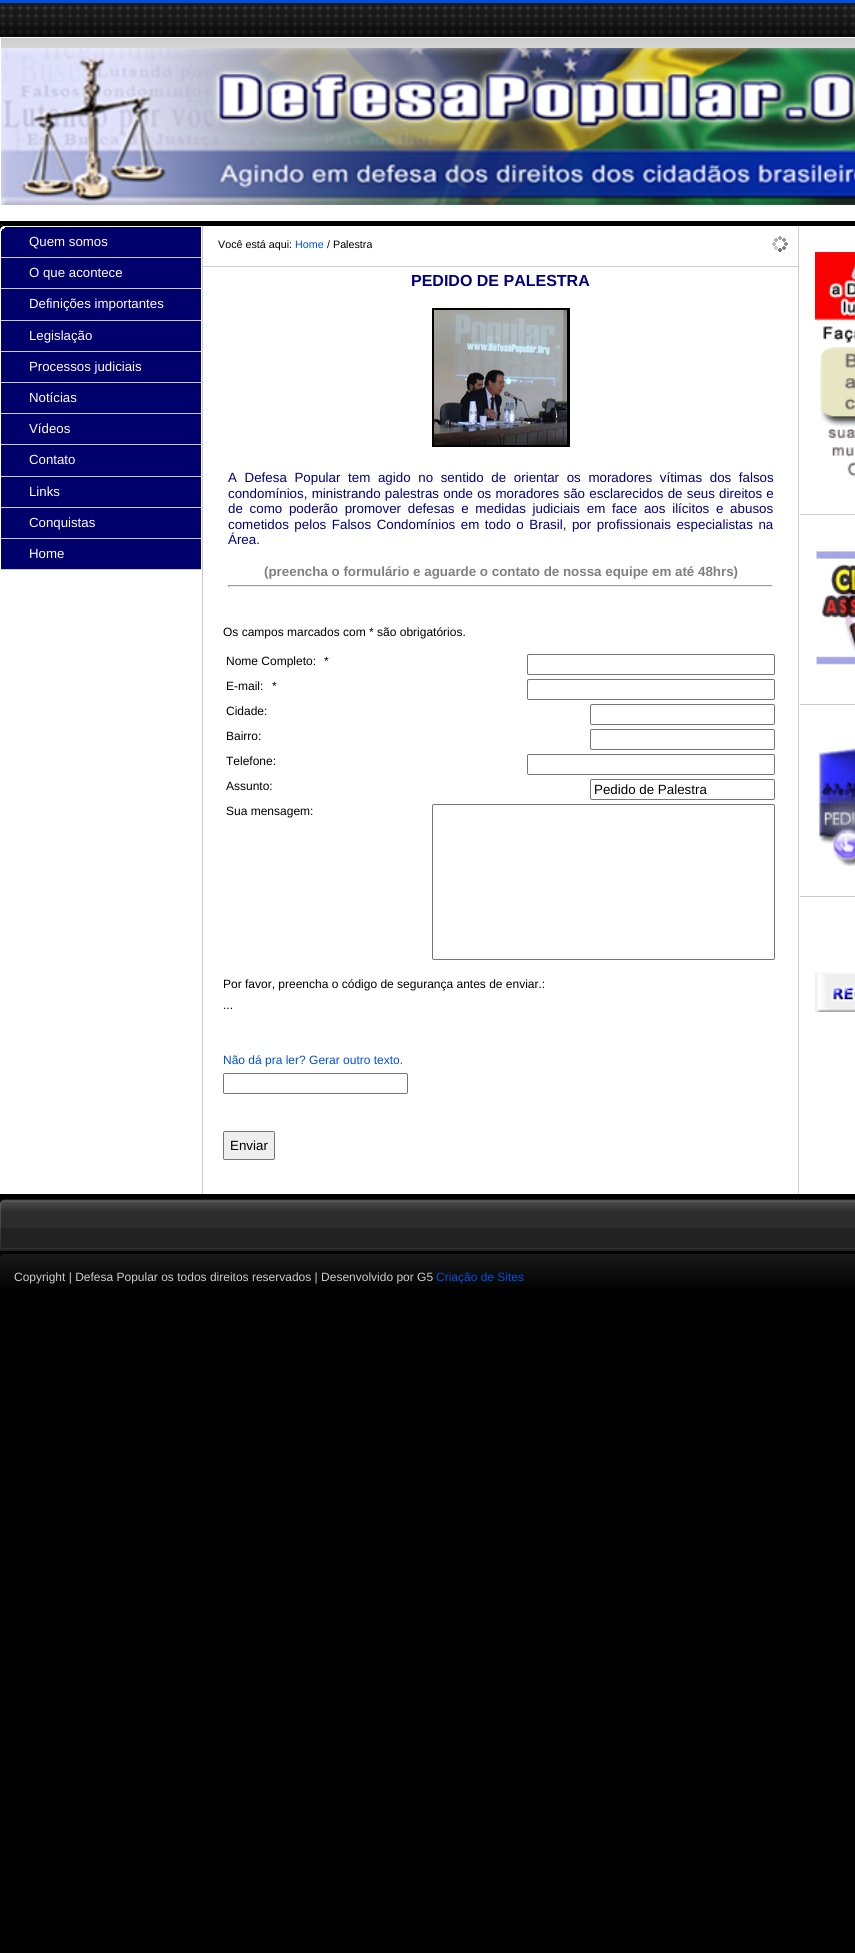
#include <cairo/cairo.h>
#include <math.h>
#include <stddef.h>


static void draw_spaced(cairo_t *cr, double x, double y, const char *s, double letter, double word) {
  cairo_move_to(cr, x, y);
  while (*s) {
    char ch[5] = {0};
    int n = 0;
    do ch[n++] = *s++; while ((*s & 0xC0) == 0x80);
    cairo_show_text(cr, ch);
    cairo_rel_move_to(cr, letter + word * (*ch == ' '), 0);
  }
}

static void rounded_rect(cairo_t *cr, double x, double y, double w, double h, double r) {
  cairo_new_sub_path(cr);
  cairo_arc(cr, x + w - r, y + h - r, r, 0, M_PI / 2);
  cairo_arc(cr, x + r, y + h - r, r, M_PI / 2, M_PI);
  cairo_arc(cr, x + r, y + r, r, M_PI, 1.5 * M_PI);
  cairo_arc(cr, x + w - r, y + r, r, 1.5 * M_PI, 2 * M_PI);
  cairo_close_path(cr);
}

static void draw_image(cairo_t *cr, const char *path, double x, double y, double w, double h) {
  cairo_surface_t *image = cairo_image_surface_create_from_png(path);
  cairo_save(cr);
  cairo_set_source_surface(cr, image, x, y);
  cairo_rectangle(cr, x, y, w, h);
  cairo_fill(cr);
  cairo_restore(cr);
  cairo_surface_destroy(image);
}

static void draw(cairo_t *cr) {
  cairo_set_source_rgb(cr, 0, 0, 0);
  cairo_paint(cr);
  draw_image(cr, "images/1.png", 0, 3, 855, 34);
  cairo_set_source_rgb(cr, 0, 78 / 255.0, 222 / 255.0);
  cairo_rectangle(cr, 0, 0, 855, 3);
  cairo_fill(cr);
  cairo_set_source_rgb(cr, 1, 1, 1);
  cairo_rectangle(cr, 0, 37, 855, 184);
  cairo_fill(cr);
  draw_image(cr, "images/2.png", 1, 38, 854, 10);
  draw_image(cr, "images/3.png", 1, 48, 854, 157);
  cairo_rectangle(cr, 0, 226, 855, 968);
  cairo_fill(cr);
  cairo_set_source_rgb(cr, 0, 0, 108 / 255.0);
  cairo_rectangle(cr, 1, 227, 200, 30);
  cairo_fill(cr);
  draw_image(cr, "images/4.png", 0, 226, 5, 5);
  cairo_set_source_rgb(cr, 204 / 255.0, 204 / 255.0, 204 / 255.0);
  cairo_rectangle(cr, 202, 226, 1, 968);
  cairo_fill(cr);
  cairo_rectangle(cr, 798, 226, 1, 968);
  cairo_fill(cr);
  cairo_rectangle(cr, 1, 257, 200, 1);
  cairo_fill(cr);
  cairo_rectangle(cr, 1, 288, 200, 1);
  cairo_fill(cr);
  cairo_set_source_rgb(cr, 0, 0, 108 / 255.0);
  cairo_rectangle(cr, 1, 258, 200, 30);
  cairo_fill(cr);
  cairo_set_source_rgb(cr, 204 / 255.0, 204 / 255.0, 204 / 255.0);
  cairo_rectangle(cr, 1, 320, 200, 1);
  cairo_fill(cr);
  cairo_set_source_rgb(cr, 0, 0, 108 / 255.0);
  cairo_rectangle(cr, 1, 289, 200, 31);
  cairo_fill(cr);
  cairo_set_source_rgb(cr, 204 / 255.0, 204 / 255.0, 204 / 255.0);
  cairo_rectangle(cr, 1, 351, 200, 1);
  cairo_fill(cr);
  cairo_set_source_rgb(cr, 0, 0, 108 / 255.0);
  cairo_rectangle(cr, 1, 321, 200, 30);
  cairo_fill(cr);
  cairo_set_source_rgb(cr, 204 / 255.0, 204 / 255.0, 204 / 255.0);
  cairo_rectangle(cr, 1, 382, 200, 1);
  cairo_fill(cr);
  cairo_set_source_rgb(cr, 0, 0, 108 / 255.0);
  cairo_rectangle(cr, 1, 352, 200, 30);
  cairo_fill(cr);
  cairo_set_source_rgb(cr, 204 / 255.0, 204 / 255.0, 204 / 255.0);
  cairo_rectangle(cr, 1, 413, 200, 1);
  cairo_fill(cr);
  cairo_set_source_rgb(cr, 0, 0, 108 / 255.0);
  cairo_rectangle(cr, 1, 383, 200, 30);
  cairo_fill(cr);
  cairo_set_source_rgb(cr, 204 / 255.0, 204 / 255.0, 204 / 255.0);
  cairo_rectangle(cr, 1, 444, 200, 1);
  cairo_fill(cr);
  cairo_set_source_rgb(cr, 0, 0, 108 / 255.0);
  cairo_rectangle(cr, 1, 414, 200, 30);
  cairo_fill(cr);
  cairo_set_source_rgb(cr, 204 / 255.0, 204 / 255.0, 204 / 255.0);
  cairo_rectangle(cr, 1, 476, 200, 1);
  cairo_fill(cr);
  cairo_set_source_rgb(cr, 0, 0, 108 / 255.0);
  cairo_rectangle(cr, 1, 445, 200, 31);
  cairo_fill(cr);
  cairo_set_source_rgb(cr, 204 / 255.0, 204 / 255.0, 204 / 255.0);
  cairo_rectangle(cr, 1, 507, 200, 1);
  cairo_fill(cr);
  cairo_set_source_rgb(cr, 0, 0, 108 / 255.0);
  cairo_rectangle(cr, 1, 477, 200, 30);
  cairo_fill(cr);
  cairo_set_source_rgb(cr, 204 / 255.0, 204 / 255.0, 204 / 255.0);
  cairo_rectangle(cr, 1, 538, 200, 1);
  cairo_fill(cr);
  cairo_set_source_rgb(cr, 0, 0, 108 / 255.0);
  cairo_rectangle(cr, 1, 508, 200, 30);
  cairo_fill(cr);
  cairo_set_source_rgb(cr, 204 / 255.0, 204 / 255.0, 204 / 255.0);
  cairo_rectangle(cr, 1, 569, 200, 1);
  cairo_fill(cr);
  cairo_set_source_rgb(cr, 0, 0, 108 / 255.0);
  cairo_rectangle(cr, 1, 539, 200, 30);
  cairo_fill(cr);
  cairo_set_source_rgb(cr, 204 / 255.0, 204 / 255.0, 204 / 255.0);
  cairo_rectangle(cr, 203, 266, 595, 1);
  cairo_fill(cr);
  draw_image(cr, "images/5.png", 772, 236, 16, 16);
  cairo_rectangle(cr, 432.5, 308.5, 137, 138);
  cairo_set_source_rgb(cr, 0, 0, 0);
  cairo_set_line_width(cr, 1);
  cairo_stroke(cr);
  draw_image(cr, "images/6.png", 433, 309, 136, 137);
  cairo_set_source_rgb(cr, 159 / 255.0, 159 / 255.0, 159 / 255.0);
  cairo_rectangle(cr, 228, 585, 545, 1);
  cairo_fill(cr);
  cairo_set_source_rgb(cr, 238 / 255.0, 238 / 255.0, 238 / 255.0);
  cairo_rectangle(cr, 772, 585, 1, 2);
  cairo_fill(cr);
  cairo_rectangle(cr, 228, 586, 545, 1);
  cairo_fill(cr);
  cairo_set_source_rgb(cr, 159 / 255.0, 159 / 255.0, 159 / 255.0);
  cairo_rectangle(cr, 228, 585, 1, 2);
  cairo_fill(cr);
  rounded_rect(cr, 527.5, 654.5, 247, 20, 1.5);
  cairo_set_source_rgb(cr, 118 / 255.0, 118 / 255.0, 118 / 255.0);
  cairo_stroke(cr);
  rounded_rect(cr, 527.5, 679.5, 247, 20, 1.5);
  cairo_stroke(cr);
  rounded_rect(cr, 590.5, 704.5, 184, 20, 1.5);
  cairo_stroke(cr);
  rounded_rect(cr, 590.5, 729.5, 184, 20, 1.5);
  cairo_stroke(cr);
  rounded_rect(cr, 527.5, 754.5, 247, 20, 1.5);
  cairo_stroke(cr);
  rounded_rect(cr, 590.5, 779.5, 184, 20, 1.5);
  cairo_stroke(cr);
  rounded_rect(cr, 432.5, 804.5, 342, 155, 1.5);
  cairo_stroke(cr);
  rounded_rect(cr, 223.5, 1073.5, 184, 20, 1.5);
  cairo_stroke(cr);
  cairo_set_source_rgb(cr, 239 / 255.0, 239 / 255.0, 239 / 255.0);
  rounded_rect(cr, 223.5, 1131.5, 51, 28, 1.5);
  cairo_fill_preserve(cr);
  cairo_set_source_rgb(cr, 118 / 255.0, 118 / 255.0, 118 / 255.0);
  cairo_stroke(cr);
  cairo_set_source_rgb(cr, 204 / 255.0, 204 / 255.0, 204 / 255.0);
  cairo_rectangle(cr, 800, 514, 55, 1);
  cairo_fill(cr);
  draw_image(cr, "images/7.png", 815, 252, 40, 225);
  cairo_rectangle(cr, 800, 704, 55, 1);
  cairo_fill(cr);
  draw_image(cr, "images/8.png", 816, 551, 39, 114);
  cairo_rectangle(cr, 800, 896, 55, 1);
  cairo_fill(cr);
  draw_image(cr, "images/9.png", 819, 748, 36, 118);
  draw_image(cr, "images/10.png", 815, 972, 40, 40);
  draw_image(cr, "images/11.png", 5, 1199, 850, 52);
  draw_image(cr, "images/12.png", 0, 1199, 5, 52);
  draw_image(cr, "images/13.png", 0, 1254, 855, 33);
  draw_image(cr, "images/14.png", 0, 1254, 2, 3);
  cairo_select_font_face(cr, "Liberation Sans", CAIRO_FONT_SLANT_NORMAL, CAIRO_FONT_WEIGHT_NORMAL);
  cairo_set_font_size(cr, 13.25);
  cairo_set_source_rgb(cr, 1, 1, 1);
  cairo_move_to(cr, 29, 246);
  cairo_show_text(cr, "Quem somos");
  cairo_move_to(cr, 29, 277);
  cairo_show_text(cr, "O que acontece");
  cairo_move_to(cr, 29, 308);
  cairo_show_text(cr, "Definições importantes");
  cairo_move_to(cr, 29, 340);
  cairo_show_text(cr, "Legislação");
  cairo_move_to(cr, 29, 371);
  cairo_show_text(cr, "Processos judiciais");
  cairo_move_to(cr, 29, 402);
  cairo_show_text(cr, "Notícias");
  cairo_move_to(cr, 29, 433);
  cairo_show_text(cr, "Vídeos");
  cairo_move_to(cr, 29, 464);
  cairo_show_text(cr, "Contato");
  cairo_move_to(cr, 29, 496);
  cairo_show_text(cr, "Links");
  cairo_move_to(cr, 29, 527);
  cairo_show_text(cr, "Conquistas");
  cairo_move_to(cr, 29, 558);
  cairo_show_text(cr, "Home");
  cairo_set_font_size(cr, 10.75);
  cairo_set_source_rgb(cr, 0, 0, 0);
  cairo_move_to(cr, 218, 248);
  cairo_show_text(cr, "Você está aqui:");
  cairo_set_source_rgb(cr, 0, 78 / 255.0, 222 / 255.0);
  cairo_move_to(cr, 295, 248);
  cairo_show_text(cr, "Home");
  cairo_set_source_rgb(cr, 0, 0, 0);
  cairo_move_to(cr, 327, 248);
  cairo_show_text(cr, "/ Palestra");
  cairo_select_font_face(cr, "Liberation Sans", CAIRO_FONT_SLANT_NORMAL, CAIRO_FONT_WEIGHT_BOLD);
  cairo_set_font_size(cr, 16);
  cairo_set_source_rgb(cr, 0, 0, 128 / 255.0);
  cairo_move_to(cr, 411, 286);
  cairo_show_text(cr, "PEDIDO DE PALESTRA");
  cairo_select_font_face(cr, "Liberation Sans", CAIRO_FONT_SLANT_NORMAL, CAIRO_FONT_WEIGHT_NORMAL);
  cairo_set_font_size(cr, 13.35);
  draw_spaced(cr, 228, 482, "A Defesa Popular tem agido no sentido de orientar os moradores vítimas dos falsos", 0, 3.9);
  draw_spaced(cr, 228, 498, "condomínios, ministrando palestras onde os moradores são esclarecidos de seus direitos e", 0, 0.5);
  draw_spaced(cr, 228, 513, "de como poderão promover defesas e medidas judiciais em face aos ilícitos e abusos", 0, 3);
  draw_spaced(cr, 228, 529, "cometidos pelos Falsos Condomínios em todo o Brasil, por profissionais especialistas na", 0, 1.8);
  cairo_move_to(cr, 228, 544);
  cairo_show_text(cr, "Área.");
  cairo_select_font_face(cr, "Liberation Sans", CAIRO_FONT_SLANT_NORMAL, CAIRO_FONT_WEIGHT_BOLD);
  cairo_set_source_rgb(cr, 128 / 255.0, 128 / 255.0, 128 / 255.0);
  cairo_move_to(cr, 264, 576);
  cairo_show_text(cr, "(preencha o formulário e aguarde o contato de nossa equipe em até 48hrs)");
  cairo_select_font_face(cr, "Liberation Sans", CAIRO_FONT_SLANT_NORMAL, CAIRO_FONT_WEIGHT_NORMAL);
  cairo_set_font_size(cr, 12);
  cairo_set_source_rgb(cr, 0, 0, 0);
  cairo_move_to(cr, 223, 636);
  cairo_show_text(cr, "Os campos marcados com * são obrigatórios.");
  cairo_move_to(cr, 226, 665);
  cairo_show_text(cr, "Nome Completo:");
  cairo_move_to(cr, 324, 665);
  cairo_show_text(cr, "*");
  cairo_move_to(cr, 226, 690);
  cairo_show_text(cr, "E-mail:");
  cairo_move_to(cr, 272, 690);
  cairo_show_text(cr, "*");
  cairo_move_to(cr, 226, 715);
  cairo_show_text(cr, "Cidade:");
  cairo_move_to(cr, 226, 740);
  cairo_show_text(cr, "Bairro:");
  cairo_move_to(cr, 226, 765);
  cairo_show_text(cr, "Telefone:");
  cairo_move_to(cr, 226, 790);
  cairo_show_text(cr, "Assunto:");
  cairo_set_font_size(cr, 13.35);
  cairo_move_to(cr, 594, 794);
  cairo_show_text(cr, "Pedido de Palestra");
  cairo_set_font_size(cr, 12);
  cairo_move_to(cr, 226, 815);
  cairo_show_text(cr, "Sua mensagem:");
  cairo_move_to(cr, 223, 988);
  cairo_show_text(cr, "Por favor, preencha o código de segurança antes de enviar.:");
  cairo_move_to(cr, 223, 1009);
  cairo_show_text(cr, "...");
  cairo_set_source_rgb(cr, 0, 78 / 255.0, 222 / 255.0);
  cairo_move_to(cr, 223, 1064);
  cairo_show_text(cr, "Não dá pra ler? Gerar outro texto.");
  cairo_set_font_size(cr, 13.35);
  cairo_set_source_rgb(cr, 0, 0, 0);
  cairo_move_to(cr, 230, 1150);
  cairo_show_text(cr, "Enviar");
  cairo_set_font_size(cr, 12);
  cairo_set_source_rgb(cr, 204 / 255.0, 204 / 255.0, 204 / 255.0);
  cairo_move_to(cr, 14, 1281);
  cairo_show_text(cr, "Copyright | Defesa Popular os todos direitos reservados | Desenvolvido por G5");
  cairo_set_source_rgb(cr, 0, 78 / 255.0, 222 / 255.0);
  cairo_move_to(cr, 436, 1281);
  cairo_show_text(cr, "Criação de Sites");
}

int main(void) {
  cairo_surface_t *surface = cairo_image_surface_create(CAIRO_FORMAT_RGB24, 855, 1953);
  cairo_t *cr = cairo_create(surface);
  cairo_font_options_t *options = cairo_font_options_create();
  cairo_font_options_set_hint_metrics(options, CAIRO_HINT_METRICS_OFF);
  cairo_font_options_set_hint_style(options, CAIRO_HINT_STYLE_NONE);
  cairo_set_font_options(cr, options);
  cairo_set_miter_limit(cr, 4);
  draw(cr);
  cairo_surface_write_to_png(surface, "out.png");
  cairo_font_options_destroy(options);
  cairo_destroy(cr);
  cairo_surface_destroy(surface);
  return 0;
}
